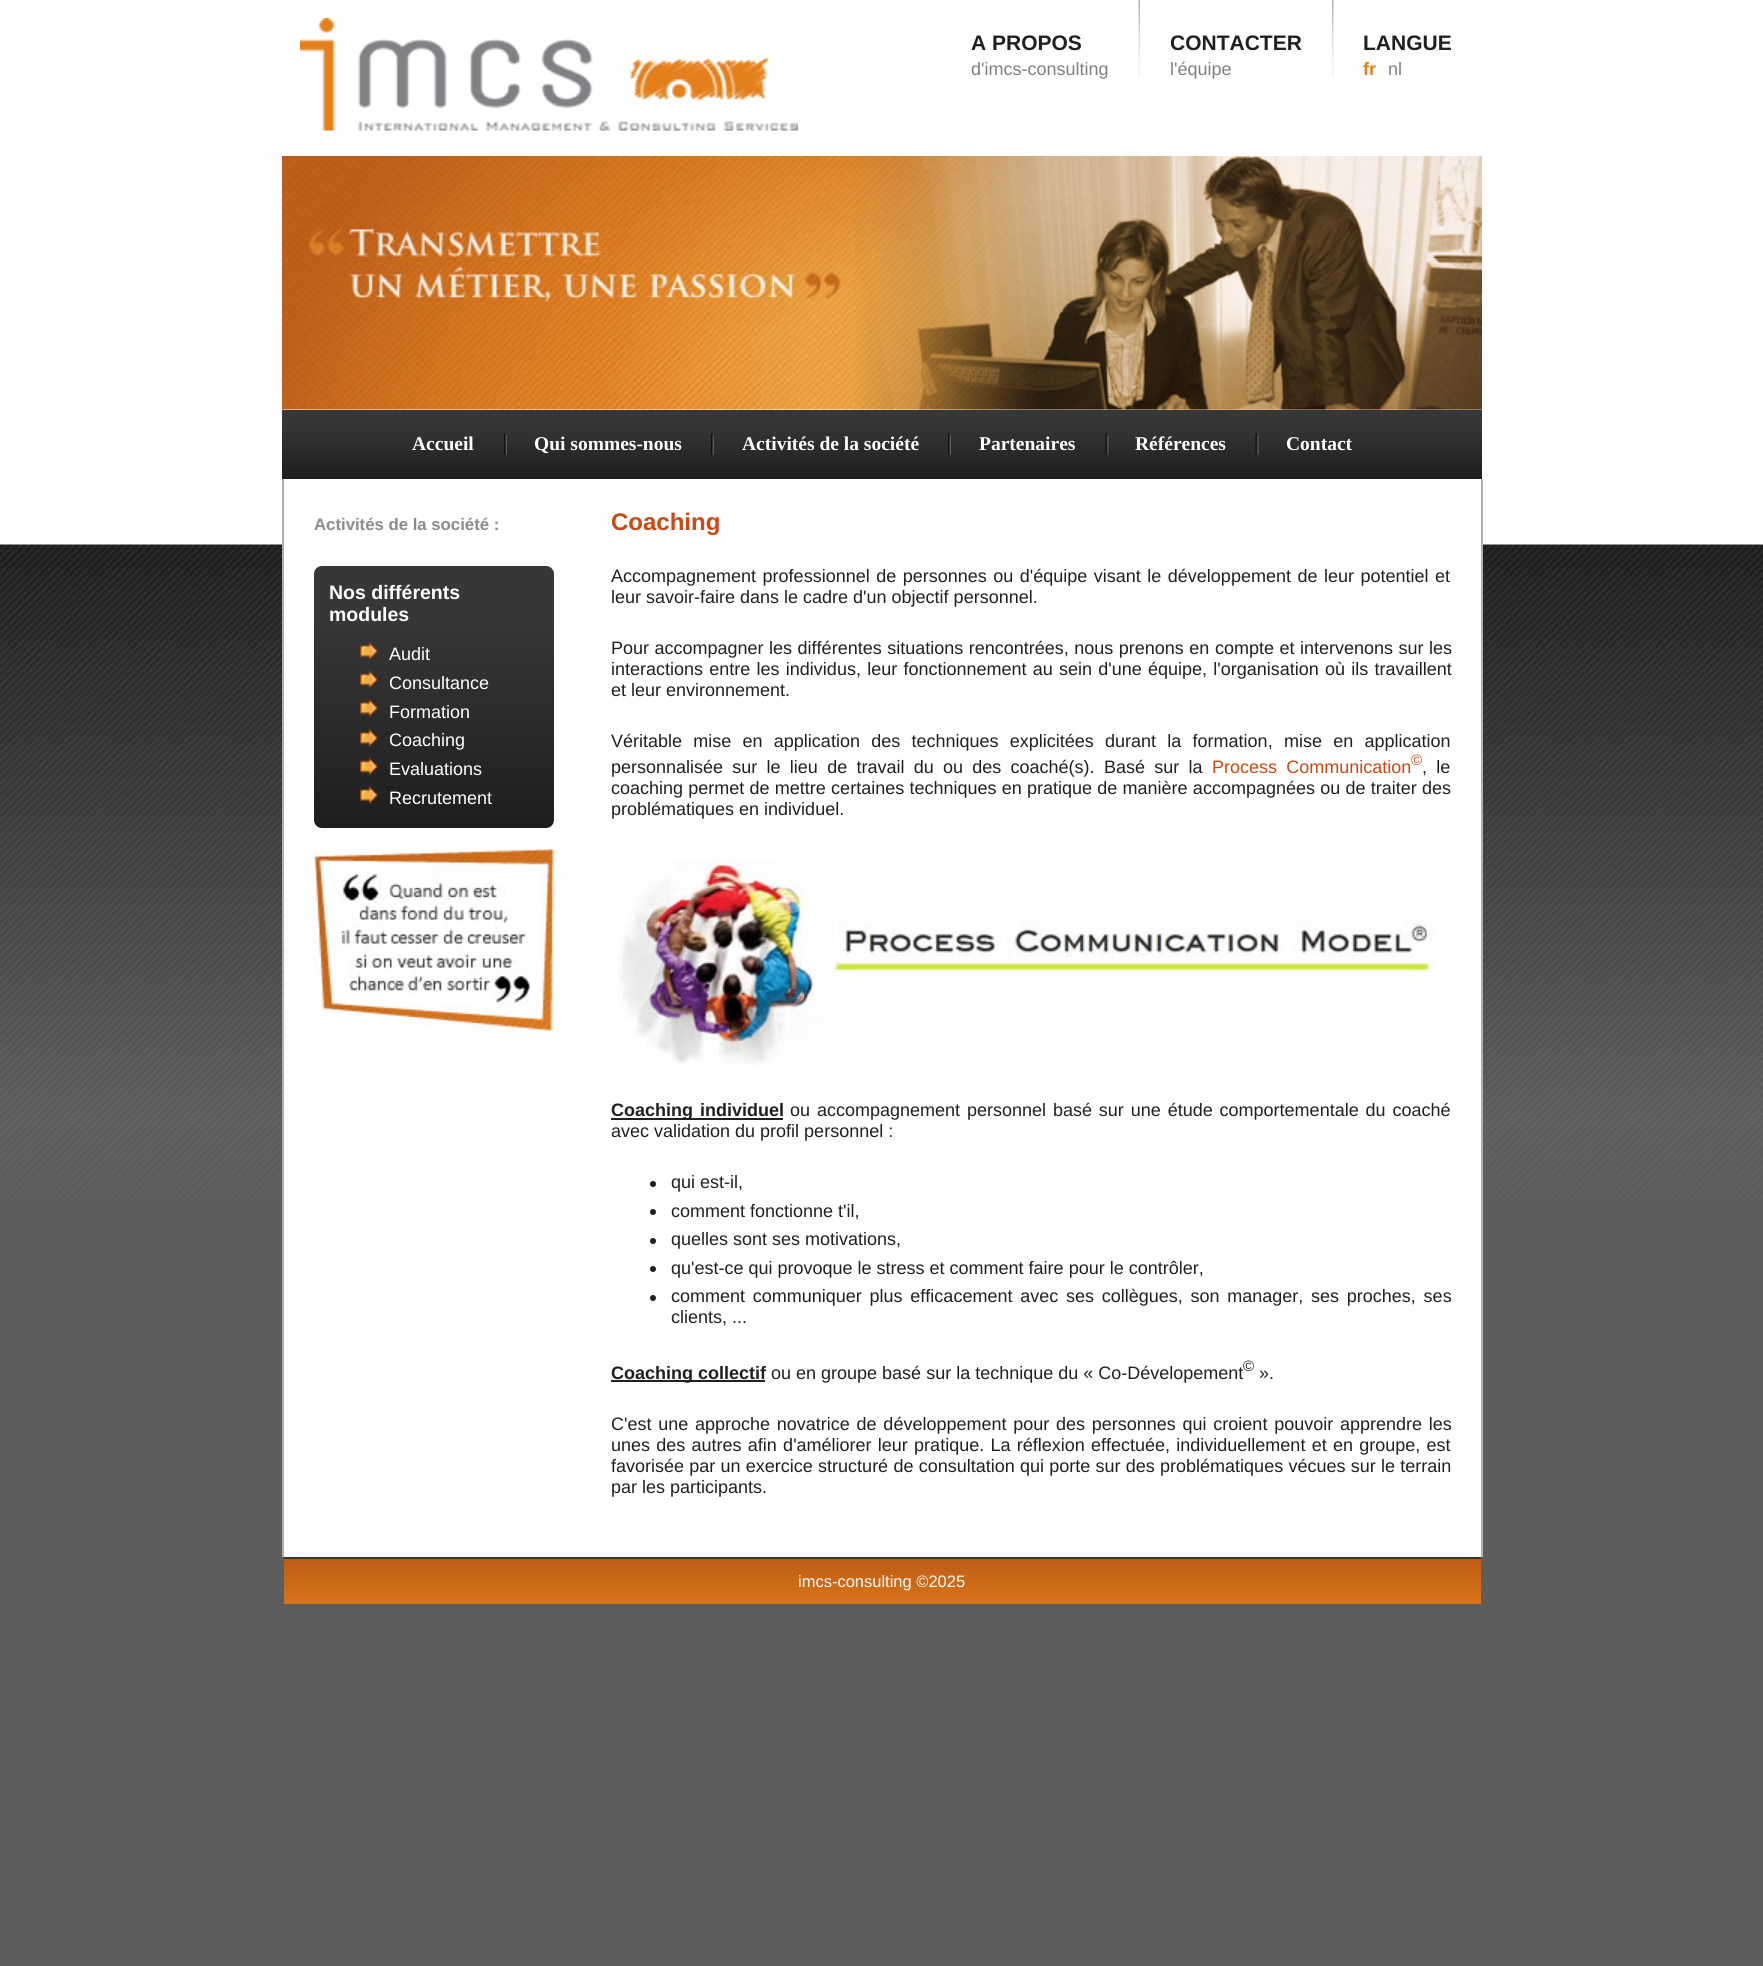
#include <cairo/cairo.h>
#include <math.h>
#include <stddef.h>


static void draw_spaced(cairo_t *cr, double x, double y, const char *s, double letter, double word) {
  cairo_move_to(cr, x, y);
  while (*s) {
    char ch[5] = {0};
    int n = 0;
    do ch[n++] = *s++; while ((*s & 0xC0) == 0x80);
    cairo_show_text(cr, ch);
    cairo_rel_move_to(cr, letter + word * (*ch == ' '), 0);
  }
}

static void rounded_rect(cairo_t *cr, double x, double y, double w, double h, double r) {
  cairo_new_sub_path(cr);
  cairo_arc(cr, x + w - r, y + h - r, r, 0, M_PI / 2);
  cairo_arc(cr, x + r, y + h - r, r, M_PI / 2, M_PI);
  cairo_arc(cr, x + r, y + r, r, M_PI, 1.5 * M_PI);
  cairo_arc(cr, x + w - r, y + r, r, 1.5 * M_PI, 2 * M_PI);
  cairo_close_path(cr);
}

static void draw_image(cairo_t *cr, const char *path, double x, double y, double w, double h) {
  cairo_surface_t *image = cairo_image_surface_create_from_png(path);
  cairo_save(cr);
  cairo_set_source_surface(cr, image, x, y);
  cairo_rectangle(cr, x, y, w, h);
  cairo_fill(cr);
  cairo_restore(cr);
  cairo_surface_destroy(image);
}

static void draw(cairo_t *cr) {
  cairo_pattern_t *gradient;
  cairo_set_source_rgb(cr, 93 / 255.0, 93 / 255.0, 93 / 255.0);
  cairo_paint(cr);
  draw_image(cr, "images/1.png", 0, 0, 1763, 1200);
  cairo_set_source_rgb(cr, 1, 1, 1);
  cairo_rectangle(cr, 282, 544, 1200, 1013);
  cairo_fill(cr);
  draw_image(cr, "images/2.png", 282, 156, 1200, 254);
  draw_image(cr, "images/3.png", 300, 18, 498, 113);
  draw_image(cr, "images/4.png", 1138, 0, 2, 77);
  draw_image(cr, "images/5.png", 1332, 0, 2, 77);
  draw_image(cr, "images/6.png", 855, 156, 627, 254);
  gradient = cairo_pattern_create_linear(882, 409, 882, 479);
  cairo_pattern_add_color_stop_rgba(gradient, 0.2, 55 / 255.0, 55 / 255.0, 55 / 255.0, 1);
  cairo_pattern_add_color_stop_rgba(gradient, 1, 30 / 255.0, 30 / 255.0, 30 / 255.0, 1);
  cairo_set_source(cr, gradient);
  cairo_pattern_destroy(gradient);
  cairo_rectangle(cr, 282, 410, 1200, 69);
  cairo_fill(cr);
  draw_image(cr, "images/7.png", 504, 433, 3, 22);
  draw_image(cr, "images/7.png", 711, 433, 3, 22);
  draw_image(cr, "images/8.png", 948, 433, 3, 22);
  draw_image(cr, "images/9.png", 1105, 433, 4, 22);
  draw_image(cr, "images/9.png", 1255, 433, 4, 22);
  cairo_set_source_rgb(cr, 175 / 255.0, 175 / 255.0, 175 / 255.0);
  cairo_rectangle(cr, 1481, 479, 2, 1078);
  cairo_fill(cr);
  cairo_rectangle(cr, 282, 479, 2, 1078);
  cairo_fill(cr);
  gradient = cairo_pattern_create_linear(434, 566, 434, 828);
  cairo_pattern_add_color_stop_rgba(gradient, 0.2, 55 / 255.0, 55 / 255.0, 55 / 255.0, 1);
  cairo_pattern_add_color_stop_rgba(gradient, 1, 30 / 255.0, 30 / 255.0, 30 / 255.0, 1);
  cairo_set_source(cr, gradient);
  cairo_pattern_destroy(gradient);
  rounded_rect(cr, 314, 566, 240, 262, 8);
  cairo_fill(cr);
  draw_image(cr, "images/10.png", 360, 642, 18, 18);
  draw_image(cr, "images/11.png", 360, 670, 18, 19);
  draw_image(cr, "images/12.png", 360, 699, 18, 18);
  draw_image(cr, "images/13.png", 360, 729, 18, 18);
  draw_image(cr, "images/14.png", 360, 757, 18, 19);
  draw_image(cr, "images/15.png", 360, 786, 18, 18);
  draw_image(cr, "images/16.png", 313, 849, 241, 182);
  draw_image(cr, "images/17.png", 618, 860, 818, 205);
  cairo_set_source_rgb(cr, 32 / 255.0, 32 / 255.0, 32 / 255.0);
  cairo_rectangle(cr, 611, 1118, 172, 2);
  cairo_fill(cr);
  cairo_arc(cr, 653, 1184, 3, 0, 2 * M_PI);
  cairo_fill(cr);
  cairo_arc(cr, 653, 1212, 3, 0, 2 * M_PI);
  cairo_fill(cr);
  cairo_arc(cr, 653, 1241, 3, 0, 2 * M_PI);
  cairo_fill(cr);
  cairo_arc(cr, 653, 1269, 3, 0, 2 * M_PI);
  cairo_fill(cr);
  cairo_arc(cr, 653, 1298, 3, 0, 2 * M_PI);
  cairo_fill(cr);
  cairo_rectangle(cr, 611, 1380, 154, 2);
  cairo_fill(cr);
  gradient = cairo_pattern_create_linear(882, 1559, 882, 1604);
  cairo_pattern_add_color_stop_rgba(gradient, 0, 190 / 255.0, 92 / 255.0, 21 / 255.0, 1);
  cairo_pattern_add_color_stop_rgba(gradient, 1, 216 / 255.0, 117 / 255.0, 26 / 255.0, 1);
  cairo_set_source(cr, gradient);
  cairo_pattern_destroy(gradient);
  cairo_rectangle(cr, 284, 1559, 1197, 45);
  cairo_fill(cr);
  cairo_set_source_rgb(cr, 54 / 255.0, 54 / 255.0, 54 / 255.0);
  cairo_rectangle(cr, 282, 1557, 1200, 2);
  cairo_fill(cr);
  cairo_set_source_rgb(cr, 93 / 255.0, 93 / 255.0, 93 / 255.0);
  cairo_rectangle(cr, 1481, 1557, 1, 2);
  cairo_fill(cr);
  cairo_rectangle(cr, 282, 1557, 2, 2);
  cairo_fill(cr);
  cairo_select_font_face(cr, "Liberation Sans", CAIRO_FONT_SLANT_NORMAL, CAIRO_FONT_WEIGHT_BOLD);
  cairo_set_font_size(cr, 21);
  cairo_set_source_rgb(cr, 32 / 255.0, 32 / 255.0, 32 / 255.0);
  cairo_move_to(cr, 971, 50);
  cairo_show_text(cr, "A PROPOS");
  cairo_select_font_face(cr, "Liberation Sans", CAIRO_FONT_SLANT_NORMAL, CAIRO_FONT_WEIGHT_NORMAL);
  cairo_set_font_size(cr, 18);
  cairo_set_source_rgb(cr, 126 / 255.0, 127 / 255.0, 131 / 255.0);
  cairo_move_to(cr, 971, 75);
  cairo_show_text(cr, "d'imcs-consulting");
  cairo_select_font_face(cr, "Liberation Sans", CAIRO_FONT_SLANT_NORMAL, CAIRO_FONT_WEIGHT_BOLD);
  cairo_set_font_size(cr, 21);
  cairo_set_source_rgb(cr, 32 / 255.0, 32 / 255.0, 32 / 255.0);
  cairo_move_to(cr, 1170, 50);
  cairo_show_text(cr, "CONTACTER");
  cairo_select_font_face(cr, "Liberation Sans", CAIRO_FONT_SLANT_NORMAL, CAIRO_FONT_WEIGHT_NORMAL);
  cairo_set_font_size(cr, 18);
  cairo_set_source_rgb(cr, 126 / 255.0, 127 / 255.0, 131 / 255.0);
  cairo_move_to(cr, 1170, 75);
  cairo_show_text(cr, "l'équipe");
  cairo_select_font_face(cr, "Liberation Sans", CAIRO_FONT_SLANT_NORMAL, CAIRO_FONT_WEIGHT_BOLD);
  cairo_set_font_size(cr, 21);
  cairo_set_source_rgb(cr, 32 / 255.0, 32 / 255.0, 32 / 255.0);
  cairo_move_to(cr, 1363, 50);
  cairo_show_text(cr, "LANGUE");
  cairo_set_font_size(cr, 18);
  cairo_set_source_rgb(cr, 228 / 255.0, 127 / 255.0, 27 / 255.0);
  cairo_move_to(cr, 1363, 75);
  cairo_show_text(cr, "fr");
  cairo_select_font_face(cr, "Liberation Sans", CAIRO_FONT_SLANT_NORMAL, CAIRO_FONT_WEIGHT_NORMAL);
  cairo_set_source_rgb(cr, 126 / 255.0, 127 / 255.0, 131 / 255.0);
  cairo_move_to(cr, 1388, 75);
  cairo_show_text(cr, "nl");
  cairo_select_font_face(cr, "Liberation Serif", CAIRO_FONT_SLANT_NORMAL, CAIRO_FONT_WEIGHT_BOLD);
  cairo_set_font_size(cr, 19.5);
  cairo_set_source_rgb(cr, 1, 1, 1);
  cairo_move_to(cr, 412, 450);
  cairo_show_text(cr, "Accueil");
  cairo_move_to(cr, 534, 450);
  cairo_show_text(cr, "Qui sommes-nous");
  cairo_move_to(cr, 742, 450);
  cairo_show_text(cr, "Activités de la société");
  cairo_move_to(cr, 979, 450);
  cairo_show_text(cr, "Partenaires");
  cairo_move_to(cr, 1135, 450);
  cairo_show_text(cr, "Références");
  cairo_move_to(cr, 1286, 450);
  cairo_show_text(cr, "Contact");
  cairo_select_font_face(cr, "Liberation Sans", CAIRO_FONT_SLANT_NORMAL, CAIRO_FONT_WEIGHT_BOLD);
  cairo_set_font_size(cr, 16.75);
  cairo_set_source_rgb(cr, 139 / 255.0, 139 / 255.0, 139 / 255.0);
  cairo_move_to(cr, 314, 530);
  cairo_show_text(cr, "Activités de la société :");
  cairo_set_font_size(cr, 19.5);
  cairo_set_source_rgb(cr, 1, 1, 1);
  cairo_move_to(cr, 329, 599);
  cairo_show_text(cr, "Nos différents");
  cairo_move_to(cr, 329, 621);
  cairo_show_text(cr, "modules");
  cairo_select_font_face(cr, "Liberation Sans", CAIRO_FONT_SLANT_NORMAL, CAIRO_FONT_WEIGHT_NORMAL);
  cairo_set_font_size(cr, 18);
  cairo_move_to(cr, 389, 660);
  cairo_show_text(cr, "Audit");
  cairo_move_to(cr, 389, 689);
  cairo_show_text(cr, "Consultance");
  cairo_move_to(cr, 389, 718);
  cairo_show_text(cr, "Formation");
  cairo_move_to(cr, 389, 746);
  cairo_show_text(cr, "Coaching");
  cairo_move_to(cr, 389, 775);
  cairo_show_text(cr, "Evaluations");
  cairo_move_to(cr, 389, 804);
  cairo_show_text(cr, "Recrutement");
  cairo_select_font_face(cr, "Liberation Sans", CAIRO_FONT_SLANT_NORMAL, CAIRO_FONT_WEIGHT_BOLD);
  cairo_set_font_size(cr, 24);
  cairo_set_source_rgb(cr, 203 / 255.0, 72 / 255.0, 18 / 255.0);
  cairo_move_to(cr, 611, 530);
  cairo_show_text(cr, "Coaching");
  cairo_select_font_face(cr, "Liberation Sans", CAIRO_FONT_SLANT_NORMAL, CAIRO_FONT_WEIGHT_NORMAL);
  cairo_set_font_size(cr, 18);
  cairo_set_source_rgb(cr, 32 / 255.0, 32 / 255.0, 32 / 255.0);
  draw_spaced(cr, 611, 582, "Accompagnement professionnel de personnes ou d'équipe visant le développement de leur potentiel et", 0, 1.5);
  cairo_move_to(cr, 611, 603);
  cairo_show_text(cr, "leur savoir-faire dans le cadre d'un objectif personnel.");
  draw_spaced(cr, 611, 654, "Pour accompagner les différentes situations rencontrées, nous prenons en compte et intervenons sur les", 0, 0.5);
  draw_spaced(cr, 611, 675, "interactions entre les individus, leur fonctionnement au sein d'une équipe, l'organisation où ils travaillent", 0, 1.25);
  cairo_move_to(cr, 611, 696);
  cairo_show_text(cr, "et leur environnement.");
  draw_spaced(cr, 611, 747, "Véritable mise en application des techniques explicitées durant la formation, mise en application", 0, 6.25);
  draw_spaced(cr, 611, 773, "personnalisée sur le lieu de travail du ou des coaché(s).", 0, 4.25);
  draw_spaced(cr, 1104, 773, "Basé sur la", 0, 4.25);
  cairo_set_source_rgb(cr, 203 / 255.0, 72 / 255.0, 18 / 255.0);
  draw_spaced(cr, 1212, 773, "Process Communication", 0, 4.25);
  cairo_set_font_size(cr, 15);
  cairo_move_to(cr, 1411, 765);
  cairo_show_text(cr, "©");
  cairo_set_font_size(cr, 18);
  cairo_set_source_rgb(cr, 32 / 255.0, 32 / 255.0, 32 / 255.0);
  draw_spaced(cr, 1422, 773, ", le", 0, 4.25);
  draw_spaced(cr, 611, 794, "coaching permet de mettre certaines techniques en pratique de manière accompagnées ou de traiter des", 0, 0.25);
  cairo_move_to(cr, 611, 815);
  cairo_show_text(cr, "problématiques en individuel.");
  cairo_select_font_face(cr, "Liberation Sans", CAIRO_FONT_SLANT_NORMAL, CAIRO_FONT_WEIGHT_BOLD);
  draw_spaced(cr, 611, 1116, "Coaching individuel", 0, 2);
  cairo_select_font_face(cr, "Liberation Sans", CAIRO_FONT_SLANT_NORMAL, CAIRO_FONT_WEIGHT_NORMAL);
  draw_spaced(cr, 790, 1116, "ou accompagnement personnel basé sur une étude comportementale du coaché", 0, 1.9);
  cairo_move_to(cr, 611, 1137);
  cairo_show_text(cr, "avec validation du profil personnel :");
  cairo_move_to(cr, 671, 1188);
  cairo_show_text(cr, "qui est-il,");
  cairo_move_to(cr, 671, 1217);
  cairo_show_text(cr, "comment fonctionne t'il,");
  cairo_move_to(cr, 671, 1245);
  cairo_show_text(cr, "quelles sont ses motivations,");
  cairo_move_to(cr, 671, 1274);
  cairo_show_text(cr, "qu'est-ce qui provoque le stress et comment faire pour le contrôler,");
  draw_spaced(cr, 671, 1302, "comment communiquer plus efficacement avec ses collègues, son manager, ses proches, ses", 0, 2.75);
  cairo_move_to(cr, 671, 1323);
  cairo_show_text(cr, "clients, ...");
  cairo_select_font_face(cr, "Liberation Sans", CAIRO_FONT_SLANT_NORMAL, CAIRO_FONT_WEIGHT_BOLD);
  cairo_move_to(cr, 611, 1379);
  cairo_show_text(cr, "Coaching collectif");
  cairo_select_font_face(cr, "Liberation Sans", CAIRO_FONT_SLANT_NORMAL, CAIRO_FONT_WEIGHT_NORMAL);
  cairo_move_to(cr, 771, 1379);
  cairo_show_text(cr, "ou en groupe basé sur la technique du « Co-Dévelopement");
  cairo_set_font_size(cr, 15);
  cairo_move_to(cr, 1243, 1371);
  cairo_show_text(cr, "©");
  cairo_set_font_size(cr, 18);
  cairo_move_to(cr, 1259, 1379);
  cairo_show_text(cr, "».");
  draw_spaced(cr, 611, 1430, "C'est une approche novatrice de développement pour des personnes qui croient pouvoir apprendre les", 0, 1.75);
  draw_spaced(cr, 611, 1451, "unes des autres afin d'améliorer leur pratique. La réflexion effectuée, individuellement et en groupe, est", 0, 1.25);
  draw_spaced(cr, 611, 1472, "favorisée par un exercice structuré de consultation qui porte sur des problématiques vécues sur le terrain", 0, 0.25);
  cairo_move_to(cr, 611, 1493);
  cairo_show_text(cr, "par les participants.");
  cairo_set_font_size(cr, 16.5);
  cairo_set_source_rgb(cr, 1, 1, 1);
  cairo_move_to(cr, 798, 1587);
  cairo_show_text(cr, "imcs-consulting ©2025");
}

int main(void) {
  cairo_surface_t *surface = cairo_image_surface_create(CAIRO_FORMAT_RGB24, 1763, 1966);
  cairo_t *cr = cairo_create(surface);
  cairo_font_options_t *options = cairo_font_options_create();
  cairo_font_options_set_hint_metrics(options, CAIRO_HINT_METRICS_OFF);
  cairo_font_options_set_hint_style(options, CAIRO_HINT_STYLE_NONE);
  cairo_set_font_options(cr, options);
  cairo_set_miter_limit(cr, 4);
  draw(cr);
  cairo_surface_write_to_png(surface, "out.png");
  cairo_font_options_destroy(options);
  cairo_destroy(cr);
  cairo_surface_destroy(surface);
  return 0;
}
